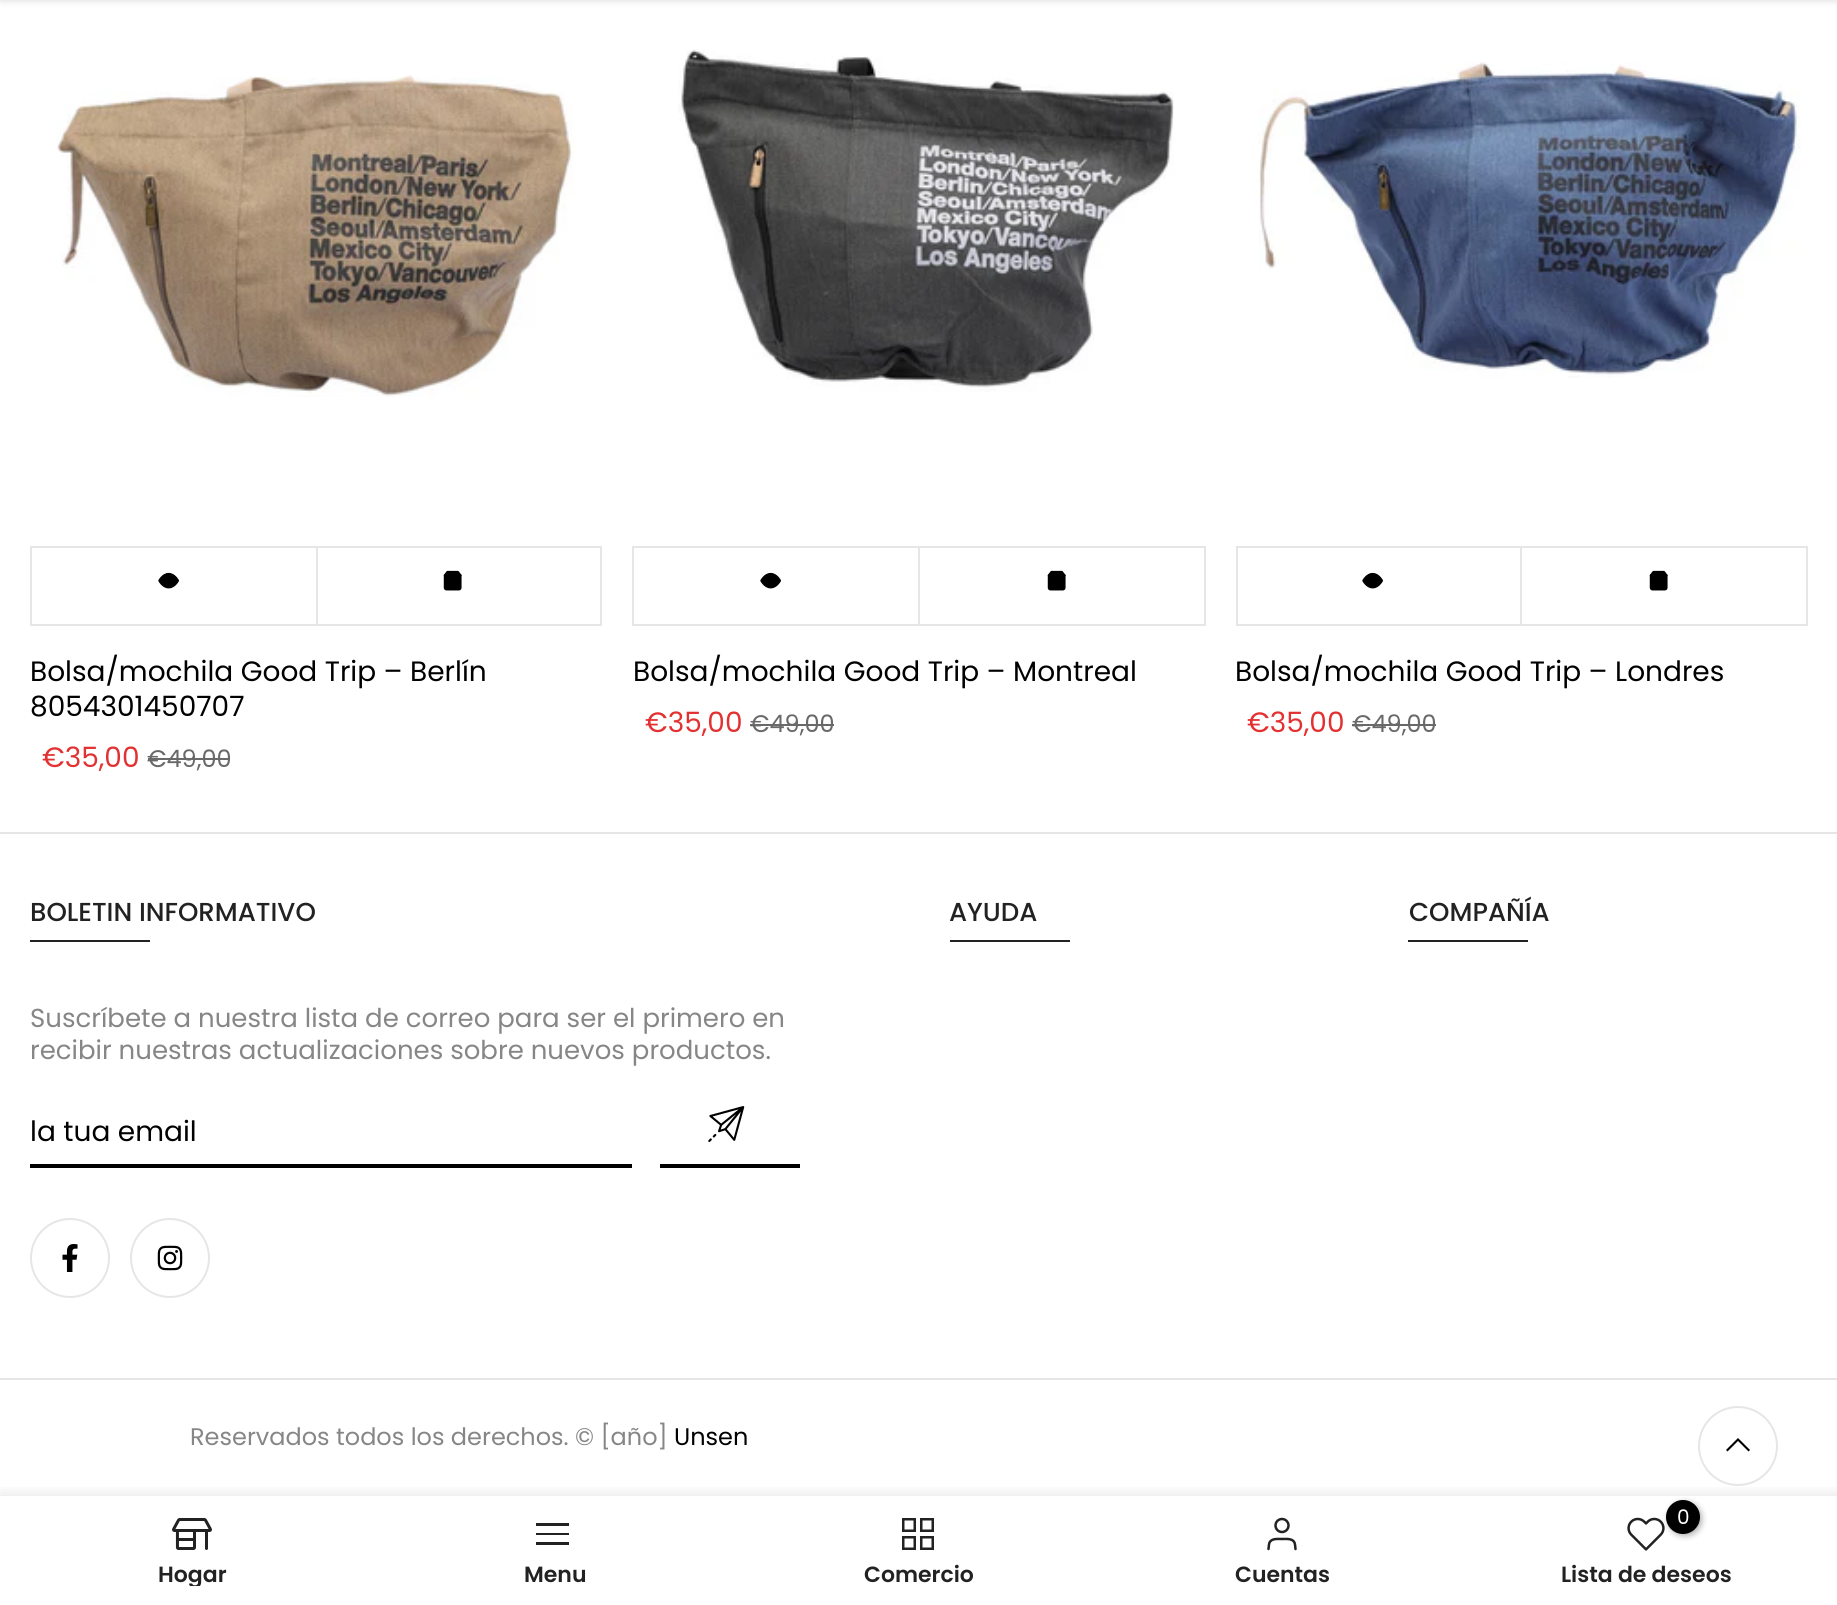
#include <cairo/cairo.h>
#include <math.h>
#include <stddef.h>


static void rounded_rect(cairo_t *cr, double x, double y, double w, double h, double r) {
  cairo_new_sub_path(cr);
  cairo_arc(cr, x + w - r, y + h - r, r, 0, M_PI / 2);
  cairo_arc(cr, x + r, y + h - r, r, M_PI / 2, M_PI);
  cairo_arc(cr, x + r, y + r, r, M_PI, 1.5 * M_PI);
  cairo_arc(cr, x + w - r, y + r, r, 1.5 * M_PI, 2 * M_PI);
  cairo_close_path(cr);
}

static void draw_shadow(cairo_t *cr, double x, double y, double w, double h, double r, double blur, double alpha) {
  cairo_push_group_with_content(cr, CAIRO_CONTENT_ALPHA);
  cairo_set_operator(cr, CAIRO_OPERATOR_SOURCE);
  for (int i = 15; i >= -15 && fmin(w, h) + blur * i / 3 > 0; i -= 2) {
    double e = blur * i / 6;
    cairo_set_source_rgba(cr, 0, 0, 0, alpha * erfc((i - 1) / 8.5) / 2);
    rounded_rect(cr, x - e, y - e, w + 2 * e, h + 2 * e, fmax(0, fmin(r + e + blur * .6, fmin(w, h) / 2 + e)));
    cairo_fill(cr);
  }
  cairo_pattern_t *soft = cairo_pop_group(cr);
  cairo_mask(cr, soft);
  cairo_pattern_destroy(soft);
}

static void draw_image(cairo_t *cr, const char *path, double x, double y, double w, double h) {
  cairo_surface_t *image = cairo_image_surface_create_from_png(path);
  cairo_save(cr);
  cairo_set_source_surface(cr, image, x, y);
  cairo_rectangle(cr, x, y, w, h);
  cairo_fill(cr);
  cairo_restore(cr);
  cairo_surface_destroy(image);
}

static void draw(cairo_t *cr) {
  cairo_set_source_rgb(cr, 1, 1, 1);
  cairo_paint(cr);
  cairo_set_source_rgb(cr, 0, 0, 0);
  draw_shadow(cr, 0, -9, 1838, 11, 0, 3, 0.1);
  draw_image(cr, "images/1.png", 56, 75, 518, 322);
  cairo_set_source_rgb(cr, 230 / 255.0, 230 / 255.0, 230 / 255.0);
  cairo_rectangle(cr, 30, 546, 572, 2);
  cairo_fill(cr);
  cairo_rectangle(cr, 30, 624, 572, 2);
  cairo_fill(cr);
  cairo_rectangle(cr, 30, 546, 2, 80);
  cairo_fill(cr);
  cairo_rectangle(cr, 316, 548, 2, 76);
  cairo_fill(cr);
  draw_image(cr, "images/2.png", 158, 572, 21, 17);
  cairo_rectangle(cr, 600, 548, 2, 76);
  cairo_fill(cr);
  draw_image(cr, "images/3.png", 443, 570, 19, 21);
  cairo_set_source_rgb(cr, 105 / 255.0, 105 / 255.0, 105 / 255.0);
  cairo_rectangle(cr, 148, 758, 82, 2);
  cairo_fill(cr);
  draw_image(cr, "images/4.png", 678, 49, 496, 343);
  cairo_set_source_rgb(cr, 230 / 255.0, 230 / 255.0, 230 / 255.0);
  cairo_rectangle(cr, 632, 546, 574, 2);
  cairo_fill(cr);
  cairo_rectangle(cr, 632, 624, 574, 2);
  cairo_fill(cr);
  cairo_rectangle(cr, 632, 546, 2, 80);
  cairo_fill(cr);
  cairo_rectangle(cr, 918, 548, 2, 76);
  cairo_fill(cr);
  draw_image(cr, "images/2.png", 760, 572, 21, 17);
  cairo_rectangle(cr, 1204, 548, 2, 76);
  cairo_fill(cr);
  draw_image(cr, "images/3.png", 1047, 570, 19, 21);
  cairo_set_source_rgb(cr, 105 / 255.0, 105 / 255.0, 105 / 255.0);
  cairo_rectangle(cr, 750, 724, 84, 2);
  cairo_fill(cr);
  draw_image(cr, "images/5.png", 1258, 62, 543, 316);
  cairo_set_source_rgb(cr, 230 / 255.0, 230 / 255.0, 230 / 255.0);
  cairo_rectangle(cr, 1236, 546, 572, 2);
  cairo_fill(cr);
  cairo_rectangle(cr, 1236, 624, 572, 2);
  cairo_fill(cr);
  cairo_rectangle(cr, 1236, 546, 2, 80);
  cairo_fill(cr);
  cairo_rectangle(cr, 1520, 548, 2, 76);
  cairo_fill(cr);
  draw_image(cr, "images/2.png", 1362, 572, 21, 17);
  cairo_rectangle(cr, 1806, 548, 2, 76);
  cairo_fill(cr);
  draw_image(cr, "images/3.png", 1649, 570, 19, 21);
  cairo_set_source_rgb(cr, 105 / 255.0, 105 / 255.0, 105 / 255.0);
  cairo_rectangle(cr, 1352, 724, 84, 2);
  cairo_fill(cr);
  cairo_set_source_rgb(cr, 230 / 255.0, 230 / 255.0, 230 / 255.0);
  cairo_rectangle(cr, 0, 832, 1837, 2);
  cairo_fill(cr);
  cairo_set_source_rgb(cr, 34 / 255.0, 34 / 255.0, 34 / 255.0);
  cairo_rectangle(cr, 30, 940, 120, 2);
  cairo_fill(cr);
  cairo_set_source_rgb(cr, 0, 0, 0);
  cairo_rectangle(cr, 30, 1164, 602, 4);
  cairo_fill(cr);
  cairo_rectangle(cr, 660, 1164, 140, 4);
  cairo_fill(cr);
  draw_image(cr, "images/6.png", 708, 1106, 37, 36);
  cairo_arc(cr, 70, 1258, 39, 0, 2 * M_PI);
  cairo_set_source_rgb(cr, 230 / 255.0, 230 / 255.0, 230 / 255.0);
  cairo_stroke(cr);
  draw_image(cr, "images/7.png", 62, 1244, 16, 28);
  cairo_arc(cr, 170, 1258, 39, 0, 2 * M_PI);
  cairo_stroke(cr);
  draw_image(cr, "images/8.png", 157, 1245, 26, 26);
  cairo_set_source_rgb(cr, 34 / 255.0, 34 / 255.0, 34 / 255.0);
  cairo_rectangle(cr, 950, 940, 120, 2);
  cairo_fill(cr);
  cairo_rectangle(cr, 1408, 940, 120, 2);
  cairo_fill(cr);
  cairo_set_source_rgb(cr, 230 / 255.0, 230 / 255.0, 230 / 255.0);
  cairo_rectangle(cr, 0, 1378, 1837, 2);
  cairo_fill(cr);
  cairo_save(cr);
  cairo_rectangle(cr, 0, 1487, 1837, 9);
  cairo_clip(cr);
  cairo_set_source_rgb(cr, 0, 0, 0);
  draw_shadow(cr, 0, 1496, 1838, 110, 0, 9, 0.12);
  cairo_restore(cr);
  cairo_set_source_rgb(cr, 1, 1, 1);
  cairo_arc(cr, 1738, 1446, 39, 0, 2 * M_PI);
  cairo_fill_preserve(cr);
  cairo_set_source_rgb(cr, 230 / 255.0, 230 / 255.0, 230 / 255.0);
  cairo_stroke(cr);
  cairo_set_source_rgb(cr, 0, 0, 0);
  cairo_new_path(cr);
  cairo_move_to(cr, 1739.5, 1439.5);
  cairo_line_to(cr, 1738, 1438);
  cairo_line_to(cr, 1726, 1450);
  cairo_line_to(cr, 1727.5, 1451.5);
  cairo_line_to(cr, 1738, 1441);
  cairo_line_to(cr, 1748.5, 1451.5);
  cairo_line_to(cr, 1750, 1450);
  cairo_line_to(cr, 1744, 1444);
  cairo_close_path(cr);
  cairo_fill(cr);
  draw_image(cr, "images/9.png", 172, 1518, 40, 32);
  cairo_set_source_rgb(cr, 34 / 255.0, 34 / 255.0, 34 / 255.0);
  cairo_rectangle(cr, 536, 1523, 33, 3);
  cairo_fill(cr);
  cairo_rectangle(cr, 536, 1533, 33, 2);
  cairo_fill(cr);
  cairo_rectangle(cr, 536, 1542, 33, 3);
  cairo_fill(cr);
  cairo_rectangle(cr, 903.25, 1519.25, 11.5, 11.5);
  cairo_set_line_width(cr, 2.5);
  cairo_stroke(cr);
  cairo_rectangle(cr, 921.25, 1519.25, 11.5, 11.5);
  cairo_stroke(cr);
  cairo_rectangle(cr, 903.25, 1537.25, 11.5, 11.5);
  cairo_stroke(cr);
  cairo_rectangle(cr, 921.25, 1537.25, 11.5, 11.5);
  cairo_stroke(cr);
  cairo_arc(cr, 1282, 1525.5, 6.5, 0, 2 * M_PI);
  cairo_stroke(cr);
  cairo_new_path(cr);
  cairo_move_to(cr, 1295.5, 1549);
  cairo_line_to(cr, 1295, 1544.5);
  cairo_curve_to(cr, 1294, 1538, 1287, 1539, 1282, 1539);
  cairo_curve_to(cr, 1277, 1539, 1270, 1538, 1269, 1544.5);
  cairo_line_to(cr, 1268.5, 1549);
  cairo_set_line_cap(cr, CAIRO_LINE_CAP_ROUND);
  cairo_set_line_join(cr, CAIRO_LINE_JOIN_ROUND);
  cairo_stroke(cr);
  draw_image(cr, "images/10.png", 1627, 1517, 38, 34);
  cairo_set_source_rgb(cr, 0, 0, 0);
  draw_shadow(cr, 1668, 1502, 34, 34, 17, 3, 0.3);
  cairo_set_source_rgb(cr, 0, 0, 0);
  cairo_arc(cr, 1683, 1517, 17, 0, 2 * M_PI);
  cairo_fill(cr);
  cairo_select_font_face(cr, "Poppins", CAIRO_FONT_SLANT_NORMAL, CAIRO_FONT_WEIGHT_NORMAL);
  cairo_set_font_size(cr, 28);
  cairo_move_to(cr, 30, 681);
  cairo_show_text(cr, "Bolsa/mochila Good Trip – Berlín");
  cairo_move_to(cr, 30, 716);
  cairo_show_text(cr, "8054301450707");
  cairo_set_source_rgb(cr, 227 / 255.0, 49 / 255.0, 49 / 255.0);
  cairo_move_to(cr, 42, 767);
  cairo_show_text(cr, "€35,00");
  cairo_set_font_size(cr, 24);
  cairo_set_source_rgb(cr, 105 / 255.0, 105 / 255.0, 105 / 255.0);
  cairo_move_to(cr, 147, 767);
  cairo_show_text(cr, "€49,00");
  cairo_set_font_size(cr, 28);
  cairo_set_source_rgb(cr, 0, 0, 0);
  cairo_move_to(cr, 633, 681);
  cairo_show_text(cr, "Bolsa/mochila Good Trip – Montreal");
  cairo_set_source_rgb(cr, 227 / 255.0, 49 / 255.0, 49 / 255.0);
  cairo_move_to(cr, 645, 732);
  cairo_show_text(cr, "€35,00");
  cairo_set_font_size(cr, 24);
  cairo_set_source_rgb(cr, 105 / 255.0, 105 / 255.0, 105 / 255.0);
  cairo_move_to(cr, 750, 732);
  cairo_show_text(cr, "€49,00");
  cairo_set_font_size(cr, 28);
  cairo_set_source_rgb(cr, 0, 0, 0);
  cairo_move_to(cr, 1235, 681);
  cairo_show_text(cr, "Bolsa/mochila Good Trip – Londres");
  cairo_set_source_rgb(cr, 227 / 255.0, 49 / 255.0, 49 / 255.0);
  cairo_move_to(cr, 1247, 732);
  cairo_show_text(cr, "€35,00");
  cairo_set_font_size(cr, 24);
  cairo_set_source_rgb(cr, 105 / 255.0, 105 / 255.0, 105 / 255.0);
  cairo_move_to(cr, 1352, 732);
  cairo_show_text(cr, "€49,00");
  cairo_select_font_face(cr, "Poppins Medium", CAIRO_FONT_SLANT_NORMAL, CAIRO_FONT_WEIGHT_NORMAL);
  cairo_set_font_size(cr, 26);
  cairo_set_source_rgb(cr, 34 / 255.0, 34 / 255.0, 34 / 255.0);
  cairo_move_to(cr, 30, 921);
  cairo_show_text(cr, "BOLETIN INFORMATIVO");
  cairo_select_font_face(cr, "Poppins", CAIRO_FONT_SLANT_NORMAL, CAIRO_FONT_WEIGHT_NORMAL);
  cairo_set_source_rgb(cr, 134 / 255.0, 134 / 255.0, 134 / 255.0);
  cairo_move_to(cr, 30, 1027);
  cairo_show_text(cr, "Suscríbete a nuestra lista de correo para ser el primero en");
  cairo_move_to(cr, 30, 1059);
  cairo_show_text(cr, "recibir nuestras actualizaciones sobre nuevos productos.");
  cairo_set_font_size(cr, 28);
  cairo_set_source_rgb(cr, 0, 0, 0);
  cairo_move_to(cr, 30, 1141);
  cairo_show_text(cr, "la tua email");
  cairo_select_font_face(cr, "Poppins Medium", CAIRO_FONT_SLANT_NORMAL, CAIRO_FONT_WEIGHT_NORMAL);
  cairo_set_font_size(cr, 26);
  cairo_set_source_rgb(cr, 34 / 255.0, 34 / 255.0, 34 / 255.0);
  cairo_move_to(cr, 949, 921);
  cairo_show_text(cr, "AYUDA");
  cairo_move_to(cr, 1409, 921);
  cairo_show_text(cr, "COMPAÑÍA");
  cairo_select_font_face(cr, "Poppins", CAIRO_FONT_SLANT_NORMAL, CAIRO_FONT_WEIGHT_NORMAL);
  cairo_set_font_size(cr, 24);
  cairo_set_source_rgb(cr, 134 / 255.0, 134 / 255.0, 134 / 255.0);
  cairo_move_to(cr, 190, 1445);
  cairo_show_text(cr, "Reservados todos los derechos. © [año]");
  cairo_set_source_rgb(cr, 0, 0, 0);
  cairo_move_to(cr, 674, 1445);
  cairo_show_text(cr, "Unsen");
  cairo_save(cr);
  cairo_rectangle(cr, 30, 1564, 324, 22);
  cairo_clip(cr);
  cairo_select_font_face(cr, "Poppins SemiBold", CAIRO_FONT_SLANT_NORMAL, CAIRO_FONT_WEIGHT_NORMAL);
  cairo_set_font_size(cr, 22);
  cairo_set_source_rgb(cr, 34 / 255.0, 34 / 255.0, 34 / 255.0);
  cairo_move_to(cr, 158, 1582);
  cairo_show_text(cr, "Hogar");
  cairo_restore(cr);
  cairo_select_font_face(cr, "Poppins SemiBold", CAIRO_FONT_SLANT_NORMAL, CAIRO_FONT_WEIGHT_NORMAL);
  cairo_set_font_size(cr, 22);
  cairo_set_source_rgb(cr, 34 / 255.0, 34 / 255.0, 34 / 255.0);
  cairo_move_to(cr, 524, 1582);
  cairo_show_text(cr, "Menu");
  cairo_move_to(cr, 864, 1582);
  cairo_show_text(cr, "Comercio");
  cairo_move_to(cr, 1235, 1582);
  cairo_show_text(cr, "Cuentas");
  cairo_select_font_face(cr, "Poppins", CAIRO_FONT_SLANT_NORMAL, CAIRO_FONT_WEIGHT_NORMAL);
  cairo_set_font_size(cr, 20);
  cairo_set_source_rgb(cr, 1, 1, 1);
  cairo_move_to(cr, 1677, 1524);
  cairo_show_text(cr, "0");
  cairo_select_font_face(cr, "Poppins SemiBold", CAIRO_FONT_SLANT_NORMAL, CAIRO_FONT_WEIGHT_NORMAL);
  cairo_set_font_size(cr, 22);
  cairo_set_source_rgb(cr, 34 / 255.0, 34 / 255.0, 34 / 255.0);
  cairo_move_to(cr, 1561, 1582);
  cairo_show_text(cr, "Lista de deseos");
}

int main(void) {
  cairo_surface_t *surface = cairo_image_surface_create(CAIRO_FORMAT_RGB24, 1837, 1605);
  cairo_t *cr = cairo_create(surface);
  cairo_font_options_t *options = cairo_font_options_create();
  cairo_font_options_set_hint_metrics(options, CAIRO_HINT_METRICS_OFF);
  cairo_font_options_set_hint_style(options, CAIRO_HINT_STYLE_NONE);
  cairo_set_font_options(cr, options);
  cairo_set_miter_limit(cr, 4);
  draw(cr);
  cairo_surface_write_to_png(surface, "out.png");
  cairo_font_options_destroy(options);
  cairo_destroy(cr);
  cairo_surface_destroy(surface);
  return 0;
}
